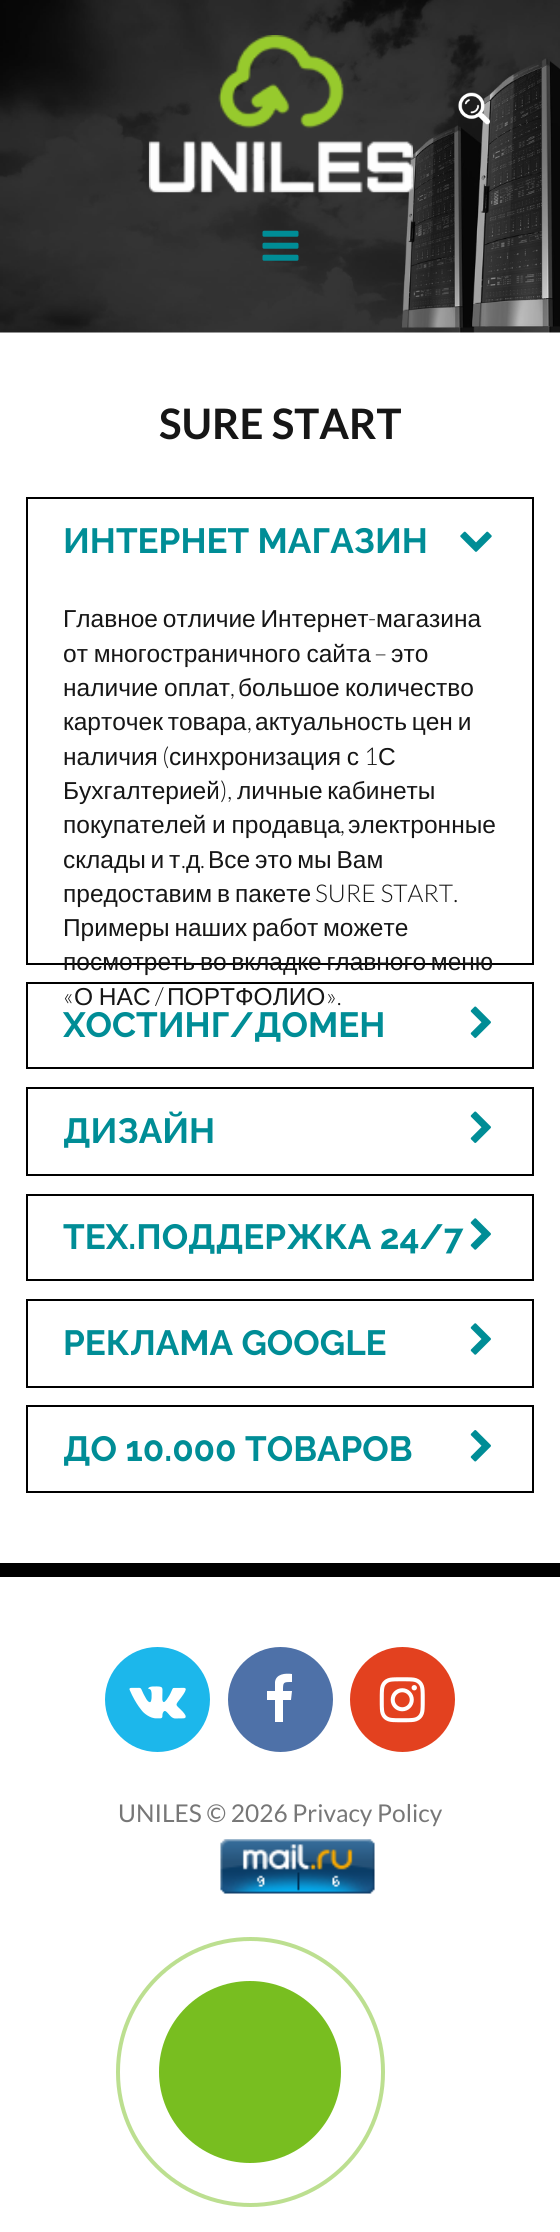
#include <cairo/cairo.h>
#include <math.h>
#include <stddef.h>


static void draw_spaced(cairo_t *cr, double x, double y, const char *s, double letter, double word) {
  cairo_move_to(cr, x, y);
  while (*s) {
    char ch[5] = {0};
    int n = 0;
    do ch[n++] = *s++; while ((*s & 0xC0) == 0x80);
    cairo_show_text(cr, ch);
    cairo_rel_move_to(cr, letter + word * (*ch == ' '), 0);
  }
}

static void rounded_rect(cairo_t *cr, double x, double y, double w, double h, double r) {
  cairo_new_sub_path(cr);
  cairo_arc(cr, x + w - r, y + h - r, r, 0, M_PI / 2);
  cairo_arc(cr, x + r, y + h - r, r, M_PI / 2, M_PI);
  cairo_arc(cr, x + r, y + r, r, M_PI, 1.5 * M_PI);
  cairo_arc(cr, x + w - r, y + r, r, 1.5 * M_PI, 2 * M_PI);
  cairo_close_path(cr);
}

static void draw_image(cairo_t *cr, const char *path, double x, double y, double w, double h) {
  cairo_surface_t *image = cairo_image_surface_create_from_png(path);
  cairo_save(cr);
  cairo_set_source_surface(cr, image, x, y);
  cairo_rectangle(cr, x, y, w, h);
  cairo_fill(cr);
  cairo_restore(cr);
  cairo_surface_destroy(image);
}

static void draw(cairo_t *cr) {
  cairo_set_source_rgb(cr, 1, 1, 1);
  cairo_paint(cr);
  draw_image(cr, "images/1.png", 0, 0, 560, 333);
  draw_image(cr, "images/2.png", 148, 35, 265, 158);
  draw_image(cr, "images/3.png", 262, 230, 37, 31);
  draw_image(cr, "images/4.png", 458, 92, 32, 33);
  cairo_set_source_rgb(cr, 0, 0, 0);
  cairo_rectangle(cr, 26, 497, 508, 2);
  cairo_fill(cr);
  cairo_rectangle(cr, 532, 497, 2, 88);
  cairo_fill(cr);
  cairo_rectangle(cr, 26, 497, 2, 88);
  cairo_fill(cr);
  draw_image(cr, "images/5.png", 460, 531, 32, 21);
  cairo_rectangle(cr, 532, 585, 2, 379);
  cairo_fill(cr);
  cairo_rectangle(cr, 26, 963, 508, 2);
  cairo_fill(cr);
  cairo_rectangle(cr, 26, 585, 2, 379);
  cairo_fill(cr);
  cairo_rectangle(cr, 27, 983, 506, 85);
  cairo_stroke(cr);
  draw_image(cr, "images/6.png", 470, 1006, 21, 32);
  cairo_rectangle(cr, 27, 1088, 506, 87);
  cairo_stroke(cr);
  draw_image(cr, "images/6.png", 470, 1111, 21, 32);
  cairo_rectangle(cr, 27, 1195, 506, 85);
  cairo_stroke(cr);
  draw_image(cr, "images/7.png", 470, 1218, 21, 32);
  cairo_rectangle(cr, 27, 1300, 506, 87);
  cairo_stroke(cr);
  draw_image(cr, "images/7.png", 470, 1323, 21, 32);
  cairo_rectangle(cr, 27, 1406, 506, 86);
  cairo_stroke(cr);
  draw_image(cr, "images/8.png", 470, 1430, 21, 32);
  cairo_rectangle(cr, 0, 1563, 560, 14);
  cairo_fill(cr);
  cairo_set_source_rgb(cr, 28 / 255.0, 183 / 255.0, 235 / 255.0);
  cairo_arc(cr, 157.5, 1699.5, 52.5, 0, 2 * M_PI);
  cairo_fill(cr);
  draw_image(cr, "images/9.png", 129, 1686, 57, 33);
  cairo_set_source_rgb(cr, 78 / 255.0, 113 / 255.0, 168 / 255.0);
  cairo_arc(cr, 280.5, 1699.5, 52.5, 0, 2 * M_PI);
  cairo_fill(cr);
  cairo_set_source_rgb(cr, 1, 1, 1);
  cairo_new_path(cr);
  cairo_move_to(cr, 292, 1674);
  cairo_curve_to(cr, 285, 1673, 276, 1674, 275, 1682);
  cairo_line_to(cr, 275, 1691);
  cairo_line_to(cr, 267, 1691);
  cairo_line_to(cr, 267, 1700);
  cairo_line_to(cr, 275, 1700);
  cairo_line_to(cr, 275, 1722);
  cairo_line_to(cr, 283, 1722);
  cairo_line_to(cr, 283, 1700);
  cairo_line_to(cr, 291, 1700);
  cairo_line_to(cr, 292, 1691);
  cairo_line_to(cr, 283, 1691);
  cairo_curve_to(cr, 283, 1682, 283, 1682, 292, 1682);
  cairo_close_path(cr);
  cairo_fill(cr);
  cairo_set_source_rgb(cr, 227 / 255.0, 65 / 255.0, 31 / 255.0);
  cairo_arc(cr, 402.5, 1699.5, 52.5, 0, 2 * M_PI);
  cairo_fill(cr);
  draw_image(cr, "images/10.png", 379, 1677, 46, 46);
  draw_image(cr, "images/11.png", 220, 1839, 155, 55);
  rounded_rect(cr, 118, 1939, 265, 266, 132.5);
  cairo_set_source_rgb(cr, 188 / 255.0, 223 / 255.0, 144 / 255.0);
  cairo_set_line_width(cr, 4);
  cairo_stroke(cr);
  cairo_set_source_rgb(cr, 120 / 255.0, 190 / 255.0, 32 / 255.0);
  cairo_arc(cr, 250, 2072, 91, 0, 2 * M_PI);
  cairo_fill(cr);
  cairo_select_font_face(cr, "Lato", CAIRO_FONT_SLANT_NORMAL, CAIRO_FONT_WEIGHT_BOLD);
  cairo_set_font_size(cr, 42);
  cairo_set_source_rgb(cr, 22 / 255.0, 22 / 255.0, 22 / 255.0);
  cairo_move_to(cr, 159, 439);
  cairo_show_text(cr, "SURE START");
  cairo_select_font_face(cr, "Raleway", CAIRO_FONT_SLANT_NORMAL, CAIRO_FONT_WEIGHT_BOLD);
  cairo_set_font_size(cr, 35);
  cairo_set_source_rgb(cr, 0, 141 / 255.0, 150 / 255.0);
  cairo_move_to(cr, 63, 553);
  cairo_show_text(cr, "ИНТЕРНЕТ МАГАЗИН");
  cairo_select_font_face(cr, "Liberation Sans", CAIRO_FONT_SLANT_NORMAL, CAIRO_FONT_WEIGHT_NORMAL);
  cairo_set_font_size(cr, 24.5);
  cairo_set_source_rgb(cr, 22 / 255.0, 22 / 255.0, 22 / 255.0);
  draw_spaced(cr, 63, 627, "Главное отличие Интернет", 0, -2);
  cairo_select_font_face(cr, "Lato Light", CAIRO_FONT_SLANT_NORMAL, CAIRO_FONT_WEIGHT_NORMAL);
  cairo_move_to(cr, 368, 627);
  cairo_show_text(cr, "-");
  cairo_select_font_face(cr, "Liberation Sans", CAIRO_FONT_SLANT_NORMAL, CAIRO_FONT_WEIGHT_NORMAL);
  cairo_move_to(cr, 376, 627);
  cairo_show_text(cr, "магазина");
  draw_spaced(cr, 63, 662, "от многостраничного сайта", 0, -1);
  cairo_select_font_face(cr, "Lato Light", CAIRO_FONT_SLANT_NORMAL, CAIRO_FONT_WEIGHT_NORMAL);
  cairo_move_to(cr, 374, 662);
  cairo_show_text(cr, "–");
  cairo_select_font_face(cr, "Liberation Sans", CAIRO_FONT_SLANT_NORMAL, CAIRO_FONT_WEIGHT_NORMAL);
  cairo_move_to(cr, 391, 662);
  cairo_show_text(cr, "это");
  draw_spaced(cr, 63, 696, "наличие оплат", 0, -1);
  cairo_select_font_face(cr, "Lato Light", CAIRO_FONT_SLANT_NORMAL, CAIRO_FONT_WEIGHT_NORMAL);
  cairo_move_to(cr, 230, 696);
  cairo_show_text(cr, ",");
  cairo_select_font_face(cr, "Liberation Sans", CAIRO_FONT_SLANT_NORMAL, CAIRO_FONT_WEIGHT_NORMAL);
  cairo_move_to(cr, 238, 696);
  cairo_show_text(cr, "большое");
  cairo_move_to(cr, 345, 696);
  cairo_show_text(cr, "количество");
  draw_spaced(cr, 63, 730, "карточек товара", 0, -2);
  cairo_select_font_face(cr, "Lato Light", CAIRO_FONT_SLANT_NORMAL, CAIRO_FONT_WEIGHT_NORMAL);
  cairo_move_to(cr, 247, 730);
  cairo_show_text(cr, ",");
  cairo_select_font_face(cr, "Liberation Sans", CAIRO_FONT_SLANT_NORMAL, CAIRO_FONT_WEIGHT_NORMAL);
  draw_spaced(cr, 255, 730, "актуальность цен и", 0, -2);
  cairo_move_to(cr, 63, 765);
  cairo_show_text(cr, "наличия");
  cairo_select_font_face(cr, "Lato Light", CAIRO_FONT_SLANT_NORMAL, CAIRO_FONT_WEIGHT_NORMAL);
  cairo_move_to(cr, 162, 765);
  cairo_show_text(cr, "(");
  cairo_select_font_face(cr, "Liberation Sans", CAIRO_FONT_SLANT_NORMAL, CAIRO_FONT_WEIGHT_NORMAL);
  draw_spaced(cr, 169, 765, "синхронизация с", 0, -1);
  cairo_select_font_face(cr, "Lato Light", CAIRO_FONT_SLANT_NORMAL, CAIRO_FONT_WEIGHT_NORMAL);
  cairo_move_to(cr, 364, 765);
  cairo_show_text(cr, "1");
  cairo_select_font_face(cr, "Liberation Sans", CAIRO_FONT_SLANT_NORMAL, CAIRO_FONT_WEIGHT_NORMAL);
  cairo_move_to(cr, 378, 765);
  cairo_show_text(cr, "С");
  cairo_move_to(cr, 63, 799);
  cairo_show_text(cr, "Бухгалтерией");
  cairo_select_font_face(cr, "Lato Light", CAIRO_FONT_SLANT_NORMAL, CAIRO_FONT_WEIGHT_NORMAL);
  cairo_move_to(cr, 220, 799);
  cairo_show_text(cr, "),");
  cairo_select_font_face(cr, "Liberation Sans", CAIRO_FONT_SLANT_NORMAL, CAIRO_FONT_WEIGHT_NORMAL);
  draw_spaced(cr, 237, 799, "личные кабинеты", 0, -2);
  draw_spaced(cr, 63, 833, "покупателей и продавца", 0, -1);
  cairo_select_font_face(cr, "Lato Light", CAIRO_FONT_SLANT_NORMAL, CAIRO_FONT_WEIGHT_NORMAL);
  cairo_move_to(cr, 340, 833);
  cairo_show_text(cr, ",");
  cairo_select_font_face(cr, "Liberation Sans", CAIRO_FONT_SLANT_NORMAL, CAIRO_FONT_WEIGHT_NORMAL);
  cairo_move_to(cr, 348, 833);
  cairo_show_text(cr, "электронные");
  draw_spaced(cr, 63, 868, "склады и т", 0, -2);
  cairo_select_font_face(cr, "Lato Light", CAIRO_FONT_SLANT_NORMAL, CAIRO_FONT_WEIGHT_NORMAL);
  cairo_move_to(cr, 181, 868);
  cairo_show_text(cr, ".");
  cairo_select_font_face(cr, "Liberation Sans", CAIRO_FONT_SLANT_NORMAL, CAIRO_FONT_WEIGHT_NORMAL);
  cairo_move_to(cr, 186, 868);
  cairo_show_text(cr, "д");
  cairo_select_font_face(cr, "Lato Light", CAIRO_FONT_SLANT_NORMAL, CAIRO_FONT_WEIGHT_NORMAL);
  cairo_move_to(cr, 200, 868);
  cairo_show_text(cr, ".");
  cairo_select_font_face(cr, "Liberation Sans", CAIRO_FONT_SLANT_NORMAL, CAIRO_FONT_WEIGHT_NORMAL);
  draw_spaced(cr, 208, 868, "Все это мы Вам", 0, -2);
  cairo_move_to(cr, 63, 902);
  cairo_show_text(cr, "предоставим");
  cairo_move_to(cr, 217, 902);
  cairo_show_text(cr, "в");
  cairo_move_to(cr, 235, 902);
  cairo_show_text(cr, "пакете");
  cairo_select_font_face(cr, "Lato Light", CAIRO_FONT_SLANT_NORMAL, CAIRO_FONT_WEIGHT_NORMAL);
  cairo_move_to(cr, 315, 902);
  cairo_show_text(cr, "SURE START.");
  cairo_select_font_face(cr, "Liberation Sans", CAIRO_FONT_SLANT_NORMAL, CAIRO_FONT_WEIGHT_NORMAL);
  draw_spaced(cr, 63, 936, "Примеры наших работ можете", 0, -2);
  draw_spaced(cr, 63, 970, "посмотреть во вкладке главного меню", 0, -2);
  cairo_select_font_face(cr, "Lato Light", CAIRO_FONT_SLANT_NORMAL, CAIRO_FONT_WEIGHT_NORMAL);
  cairo_move_to(cr, 63, 1005);
  cairo_show_text(cr, "«");
  cairo_select_font_face(cr, "Liberation Sans", CAIRO_FONT_SLANT_NORMAL, CAIRO_FONT_WEIGHT_NORMAL);
  draw_spaced(cr, 74, 1005, "О НАС", 0, -1);
  cairo_select_font_face(cr, "Lato Light", CAIRO_FONT_SLANT_NORMAL, CAIRO_FONT_WEIGHT_NORMAL);
  cairo_move_to(cr, 155, 1005);
  cairo_show_text(cr, "/");
  cairo_select_font_face(cr, "Liberation Sans", CAIRO_FONT_SLANT_NORMAL, CAIRO_FONT_WEIGHT_NORMAL);
  cairo_move_to(cr, 167, 1005);
  cairo_show_text(cr, "ПОРТФОЛИО");
  cairo_select_font_face(cr, "Lato Light", CAIRO_FONT_SLANT_NORMAL, CAIRO_FONT_WEIGHT_NORMAL);
  cairo_move_to(cr, 326, 1005);
  cairo_show_text(cr, "».");
  cairo_select_font_face(cr, "Raleway", CAIRO_FONT_SLANT_NORMAL, CAIRO_FONT_WEIGHT_BOLD);
  cairo_set_font_size(cr, 35);
  cairo_set_source_rgb(cr, 0, 141 / 255.0, 150 / 255.0);
  cairo_move_to(cr, 63, 1037);
  cairo_show_text(cr, "ХОСТИНГ/ДОМЕН");
  cairo_move_to(cr, 63, 1143);
  cairo_show_text(cr, "ДИЗАЙН");
  cairo_move_to(cr, 63, 1249);
  cairo_show_text(cr, "ТЕХ.ПОДДЕРЖКА 24/7");
  cairo_move_to(cr, 63, 1355);
  cairo_show_text(cr, "РЕКЛАМА GOOGLE");
  cairo_move_to(cr, 63, 1461);
  cairo_show_text(cr, "ДО 10.000 ТОВАРОВ");
  cairo_select_font_face(cr, "Lato", CAIRO_FONT_SLANT_NORMAL, CAIRO_FONT_WEIGHT_NORMAL);
  cairo_set_font_size(cr, 24.5);
  cairo_set_source_rgb(cr, 119 / 255.0, 119 / 255.0, 119 / 255.0);
  cairo_move_to(cr, 118, 1822);
  cairo_show_text(cr, "UNILES © 2026 Privacy Policy");
}

int main(void) {
  cairo_surface_t *surface = cairo_image_surface_create(CAIRO_FORMAT_RGB24, 560, 2232);
  cairo_t *cr = cairo_create(surface);
  cairo_font_options_t *options = cairo_font_options_create();
  cairo_font_options_set_hint_metrics(options, CAIRO_HINT_METRICS_OFF);
  cairo_font_options_set_hint_style(options, CAIRO_HINT_STYLE_NONE);
  cairo_set_font_options(cr, options);
  cairo_set_miter_limit(cr, 4);
  draw(cr);
  cairo_surface_write_to_png(surface, "out.png");
  cairo_font_options_destroy(options);
  cairo_destroy(cr);
  cairo_surface_destroy(surface);
  return 0;
}
